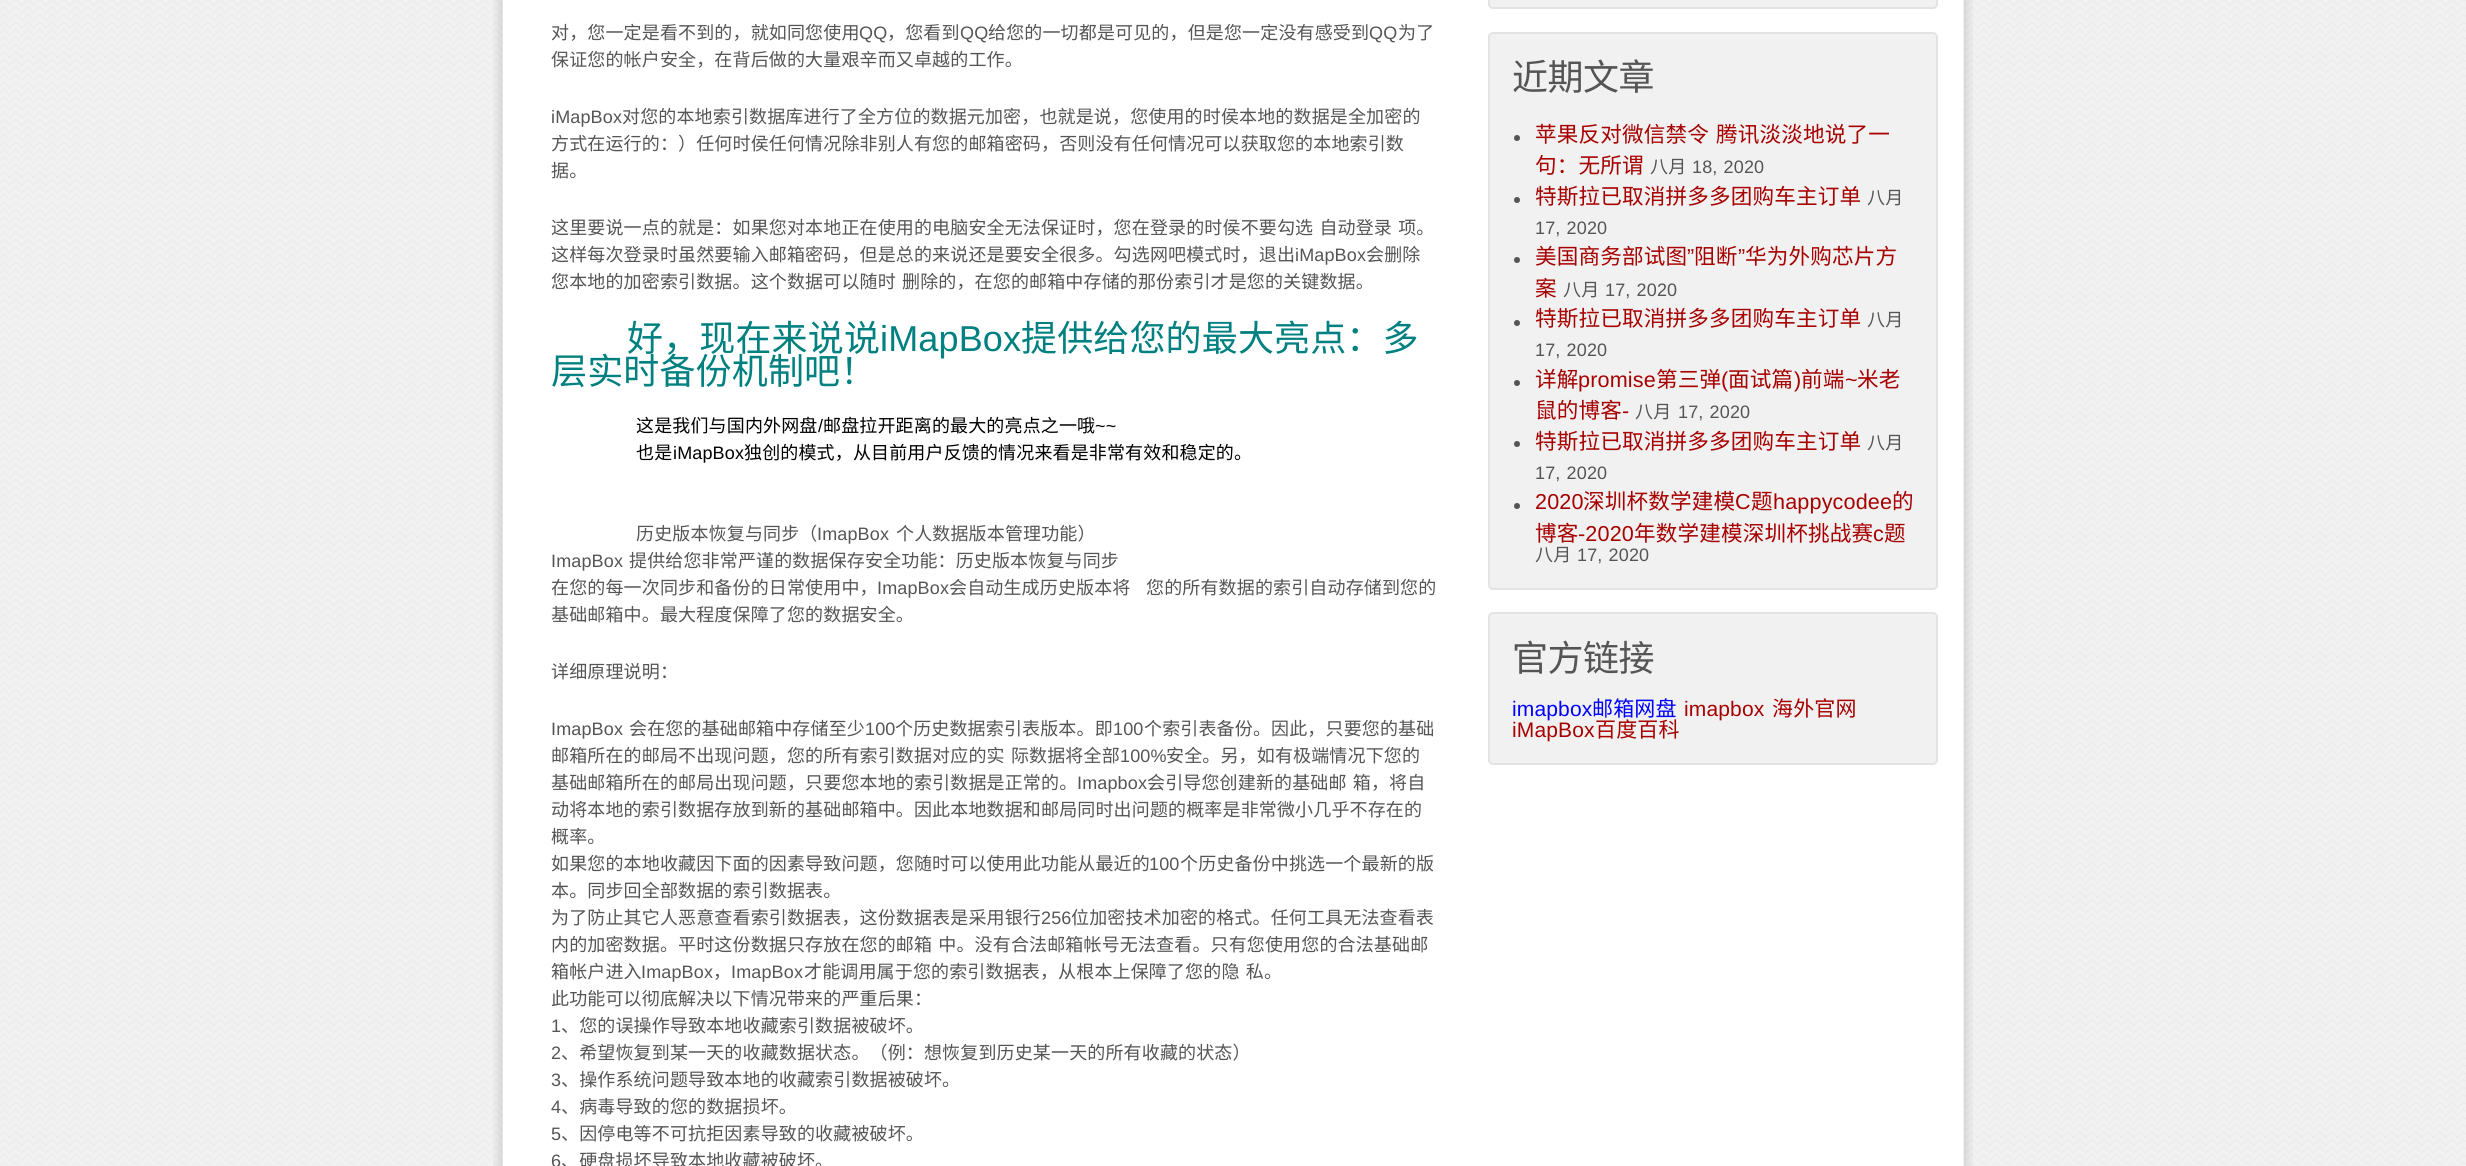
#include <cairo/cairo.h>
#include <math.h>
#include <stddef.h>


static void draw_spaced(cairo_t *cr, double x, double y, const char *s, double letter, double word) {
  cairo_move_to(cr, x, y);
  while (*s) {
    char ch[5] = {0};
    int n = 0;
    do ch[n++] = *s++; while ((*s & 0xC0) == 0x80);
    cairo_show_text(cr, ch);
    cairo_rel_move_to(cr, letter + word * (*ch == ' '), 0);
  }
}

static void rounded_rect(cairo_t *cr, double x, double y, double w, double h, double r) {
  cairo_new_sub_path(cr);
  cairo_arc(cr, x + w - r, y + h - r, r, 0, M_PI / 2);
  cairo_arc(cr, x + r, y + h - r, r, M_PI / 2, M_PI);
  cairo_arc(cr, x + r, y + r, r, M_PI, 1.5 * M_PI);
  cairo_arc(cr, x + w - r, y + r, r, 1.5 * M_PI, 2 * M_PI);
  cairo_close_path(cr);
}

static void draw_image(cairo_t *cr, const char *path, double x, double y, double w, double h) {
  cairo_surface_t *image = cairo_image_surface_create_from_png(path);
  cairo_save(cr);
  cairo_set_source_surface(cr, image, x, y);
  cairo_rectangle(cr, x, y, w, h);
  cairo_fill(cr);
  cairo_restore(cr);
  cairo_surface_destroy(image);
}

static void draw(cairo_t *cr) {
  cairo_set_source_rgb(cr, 241 / 255.0, 241 / 255.0, 241 / 255.0);
  cairo_paint(cr);
  draw_image(cr, "images/1.png", 0, 0, 2466, 1165);
  cairo_set_source_rgb(cr, 1, 1, 1);
  cairo_rectangle(cr, 503, 0, 1461, 1166);
  cairo_fill(cr);
  draw_image(cr, "images/2.png", 493, 0, 10, 1166);
  draw_image(cr, "images/3.png", 1963, 0, 10, 1166);
  cairo_set_source_rgb(cr, 241 / 255.0, 241 / 255.0, 241 / 255.0);
  rounded_rect(cr, 1489, -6, 448, 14, 4);
  cairo_fill_preserve(cr);
  cairo_set_source_rgb(cr, 227 / 255.0, 227 / 255.0, 227 / 255.0);
  cairo_stroke(cr);
  cairo_set_source_rgb(cr, 241 / 255.0, 241 / 255.0, 241 / 255.0);
  rounded_rect(cr, 1489, 33, 448, 556, 4);
  cairo_fill_preserve(cr);
  cairo_set_source_rgb(cr, 227 / 255.0, 227 / 255.0, 227 / 255.0);
  cairo_stroke(cr);
  cairo_set_source_rgb(cr, 85 / 255.0, 85 / 255.0, 85 / 255.0);
  cairo_arc(cr, 1517, 138, 3, 0, 2 * M_PI);
  cairo_fill(cr);
  cairo_arc(cr, 1517, 200, 3, 0, 2 * M_PI);
  cairo_fill(cr);
  cairo_arc(cr, 1517, 260, 3, 0, 2 * M_PI);
  cairo_fill(cr);
  cairo_arc(cr, 1517, 323, 3, 0, 2 * M_PI);
  cairo_fill(cr);
  cairo_arc(cr, 1517, 383, 3, 0, 2 * M_PI);
  cairo_fill(cr);
  cairo_arc(cr, 1517, 444, 3, 0, 2 * M_PI);
  cairo_fill(cr);
  cairo_arc(cr, 1517, 506, 3, 0, 2 * M_PI);
  cairo_fill(cr);
  cairo_set_source_rgb(cr, 241 / 255.0, 241 / 255.0, 241 / 255.0);
  rounded_rect(cr, 1489, 613, 448, 151, 4);
  cairo_fill_preserve(cr);
  cairo_set_source_rgb(cr, 227 / 255.0, 227 / 255.0, 227 / 255.0);
  cairo_stroke(cr);
  cairo_select_font_face(cr, "Noto Sans CJK SC", CAIRO_FONT_SLANT_NORMAL, CAIRO_FONT_WEIGHT_NORMAL);
  cairo_set_font_size(cr, 18);
  cairo_set_source_rgb(cr, 85 / 255.0, 85 / 255.0, 85 / 255.0);
  draw_spaced(cr, 551, 39, "对，您一定是看不到的，就如同您使用", 0.15, 0);
  cairo_select_font_face(cr, "Liberation Sans", CAIRO_FONT_SLANT_NORMAL, CAIRO_FONT_WEIGHT_NORMAL);
  draw_spaced(cr, 859, 39, "QQ", 0.15, 0);
  cairo_select_font_face(cr, "Noto Sans CJK SC", CAIRO_FONT_SLANT_NORMAL, CAIRO_FONT_WEIGHT_NORMAL);
  draw_spaced(cr, 887, 39, "，您看到", 0.15, 0);
  cairo_select_font_face(cr, "Liberation Sans", CAIRO_FONT_SLANT_NORMAL, CAIRO_FONT_WEIGHT_NORMAL);
  draw_spaced(cr, 960, 39, "QQ", 0.15, 0);
  cairo_select_font_face(cr, "Noto Sans CJK SC", CAIRO_FONT_SLANT_NORMAL, CAIRO_FONT_WEIGHT_NORMAL);
  draw_spaced(cr, 988, 39, "给您的一切都是可见的，但是您一定没有感受到", 0.15, 0);
  cairo_select_font_face(cr, "Liberation Sans", CAIRO_FONT_SLANT_NORMAL, CAIRO_FONT_WEIGHT_NORMAL);
  draw_spaced(cr, 1369, 39, "QQ", 0.15, 0);
  cairo_select_font_face(cr, "Noto Sans CJK SC", CAIRO_FONT_SLANT_NORMAL, CAIRO_FONT_WEIGHT_NORMAL);
  draw_spaced(cr, 1398, 39, "为了", 0.15, 0);
  draw_spaced(cr, 551, 66, "保证您的帐户安全，在背后做的大量艰辛而又卓越的工作。", 0.15, 0);
  cairo_select_font_face(cr, "Liberation Sans", CAIRO_FONT_SLANT_NORMAL, CAIRO_FONT_WEIGHT_NORMAL);
  draw_spaced(cr, 551, 123, "iMapBox", 0.15, 0);
  cairo_select_font_face(cr, "Noto Sans CJK SC", CAIRO_FONT_SLANT_NORMAL, CAIRO_FONT_WEIGHT_NORMAL);
  draw_spaced(cr, 622, 123, "对您的本地索引数据库进行了全方位的数据元加密，也就是说，您使用的时侯本地的数据是全加密的", 0.15, 0);
  draw_spaced(cr, 551, 150, "方式在运行的：）任何时侯任何情况除非别人有您的邮箱密码，否则没有任何情况可以获取您的本地索引数", 0.15, 0);
  draw_spaced(cr, 551, 177, "据。", 0.15, 0);
  draw_spaced(cr, 551, 234, "这里要说一点的就是：如果您对本地正在使用的电脑安全无法保证时，您在登录的时侯不要勾选 自动登录 项。", 0.15, 2);
  draw_spaced(cr, 551, 261, "这样每次登录时虽然要输入邮箱密码，但是总的来说还是要安全很多。勾选网吧模式时，退出", 0.15, 0);
  cairo_select_font_face(cr, "Liberation Sans", CAIRO_FONT_SLANT_NORMAL, CAIRO_FONT_WEIGHT_NORMAL);
  draw_spaced(cr, 1295, 261, "iMapBox", 0.15, 0);
  cairo_select_font_face(cr, "Noto Sans CJK SC", CAIRO_FONT_SLANT_NORMAL, CAIRO_FONT_WEIGHT_NORMAL);
  draw_spaced(cr, 1366, 261, "会删除", 0.15, 0);
  draw_spaced(cr, 551, 288, "您本地的加密索引数据。这个数据可以随时 删除的，在您的邮箱中存储的那份索引才是您的关键数据。", 0.15, 2);
  cairo_set_font_size(cr, 36);
  cairo_set_source_rgb(cr, 0, 128 / 255.0, 128 / 255.0);
  draw_spaced(cr, 627, 351, "好，现在来说说", 0.15, 0);
  cairo_select_font_face(cr, "Liberation Sans", CAIRO_FONT_SLANT_NORMAL, CAIRO_FONT_WEIGHT_NORMAL);
  draw_spaced(cr, 880, 351, "iMapBox", 0.15, 0);
  cairo_select_font_face(cr, "Noto Sans CJK SC", CAIRO_FONT_SLANT_NORMAL, CAIRO_FONT_WEIGHT_NORMAL);
  draw_spaced(cr, 1021, 351, "提供给您的最大亮点：多", 0.15, 0);
  draw_spaced(cr, 551, 384, "层实时备份机制吧！", 0.15, 0);
  cairo_set_font_size(cr, 18);
  cairo_set_source_rgb(cr, 0, 0, 0);
  draw_spaced(cr, 636, 432, "这是我们与国内外网盘", 0.15, 0);
  cairo_select_font_face(cr, "Liberation Sans", CAIRO_FONT_SLANT_NORMAL, CAIRO_FONT_WEIGHT_NORMAL);
  draw_spaced(cr, 818, 432, "/", 0.15, 0);
  cairo_select_font_face(cr, "Noto Sans CJK SC", CAIRO_FONT_SLANT_NORMAL, CAIRO_FONT_WEIGHT_NORMAL);
  draw_spaced(cr, 823, 432, "邮盘拉开距离的最大的亮点之一哦", 0.15, 0);
  cairo_select_font_face(cr, "Liberation Sans", CAIRO_FONT_SLANT_NORMAL, CAIRO_FONT_WEIGHT_NORMAL);
  draw_spaced(cr, 1095, 432, "~~", 0.15, 0);
  cairo_select_font_face(cr, "Noto Sans CJK SC", CAIRO_FONT_SLANT_NORMAL, CAIRO_FONT_WEIGHT_NORMAL);
  draw_spaced(cr, 636, 459, "也是", 0.15, 0);
  cairo_select_font_face(cr, "Liberation Sans", CAIRO_FONT_SLANT_NORMAL, CAIRO_FONT_WEIGHT_NORMAL);
  draw_spaced(cr, 673, 459, "iMapBox", 0.15, 0);
  cairo_select_font_face(cr, "Noto Sans CJK SC", CAIRO_FONT_SLANT_NORMAL, CAIRO_FONT_WEIGHT_NORMAL);
  draw_spaced(cr, 744, 459, "独创的模式，从目前用户反馈的情况来看是非常有效和稳定的。", 0.15, 0);
  cairo_set_source_rgb(cr, 85 / 255.0, 85 / 255.0, 85 / 255.0);
  draw_spaced(cr, 636, 540, "历史版本恢复与同步（", 0.15, 0);
  cairo_select_font_face(cr, "Liberation Sans", CAIRO_FONT_SLANT_NORMAL, CAIRO_FONT_WEIGHT_NORMAL);
  draw_spaced(cr, 817, 540, "ImapBox", 0.15, 0);
  cairo_select_font_face(cr, "Noto Sans CJK SC", CAIRO_FONT_SLANT_NORMAL, CAIRO_FONT_WEIGHT_NORMAL);
  draw_spaced(cr, 896, 540, "个人数据版本管理功能）", 0.15, 0);
  cairo_select_font_face(cr, "Liberation Sans", CAIRO_FONT_SLANT_NORMAL, CAIRO_FONT_WEIGHT_NORMAL);
  draw_spaced(cr, 551, 567, "ImapBox", 0.15, 0);
  cairo_select_font_face(cr, "Noto Sans CJK SC", CAIRO_FONT_SLANT_NORMAL, CAIRO_FONT_WEIGHT_NORMAL);
  draw_spaced(cr, 629, 567, "提供给您非常严谨的数据保存安全功能：历史版本恢复与同步", 0.15, 0);
  draw_spaced(cr, 551, 594, "在您的每一次同步和备份的日常使用中，", 0.15, 0);
  cairo_select_font_face(cr, "Liberation Sans", CAIRO_FONT_SLANT_NORMAL, CAIRO_FONT_WEIGHT_NORMAL);
  draw_spaced(cr, 877, 594, "ImapBox", 0.15, 0);
  cairo_select_font_face(cr, "Noto Sans CJK SC", CAIRO_FONT_SLANT_NORMAL, CAIRO_FONT_WEIGHT_NORMAL);
  draw_spaced(cr, 949, 594, "会自动生成历史版本将", 0.15, 0);
  draw_spaced(cr, 1146, 594, "您的所有数据的索引自动存储到您的", 0.15, 0);
  draw_spaced(cr, 551, 621, "基础邮箱中。最大程度保障了您的数据安全。", 0.15, 0);
  draw_spaced(cr, 551, 678, "详细原理说明：", 0.15, 0);
  cairo_select_font_face(cr, "Liberation Sans", CAIRO_FONT_SLANT_NORMAL, CAIRO_FONT_WEIGHT_NORMAL);
  draw_spaced(cr, 551, 735, "ImapBox", 0.15, 0);
  cairo_select_font_face(cr, "Noto Sans CJK SC", CAIRO_FONT_SLANT_NORMAL, CAIRO_FONT_WEIGHT_NORMAL);
  draw_spaced(cr, 629, 735, "会在您的基础邮箱中存储至少", 0.15, 0);
  cairo_select_font_face(cr, "Liberation Sans", CAIRO_FONT_SLANT_NORMAL, CAIRO_FONT_WEIGHT_NORMAL);
  draw_spaced(cr, 865, 735, "100", 0.15, 0);
  cairo_select_font_face(cr, "Noto Sans CJK SC", CAIRO_FONT_SLANT_NORMAL, CAIRO_FONT_WEIGHT_NORMAL);
  draw_spaced(cr, 895, 735, "个历史数据索引表版本。即", 0.15, 0);
  cairo_select_font_face(cr, "Liberation Sans", CAIRO_FONT_SLANT_NORMAL, CAIRO_FONT_WEIGHT_NORMAL);
  draw_spaced(cr, 1113, 735, "100", 0.15, 0);
  cairo_select_font_face(cr, "Noto Sans CJK SC", CAIRO_FONT_SLANT_NORMAL, CAIRO_FONT_WEIGHT_NORMAL);
  draw_spaced(cr, 1144, 735, "个索引表备份。因此，只要您的基础", 0.15, 0);
  draw_spaced(cr, 551, 762, "邮箱所在的邮局不出现问题，您的所有索引数据对应的实 际数据将全部", 0.15, 2);
  cairo_select_font_face(cr, "Liberation Sans", CAIRO_FONT_SLANT_NORMAL, CAIRO_FONT_WEIGHT_NORMAL);
  draw_spaced(cr, 1120, 762, "100%", 0.15, 0);
  cairo_select_font_face(cr, "Noto Sans CJK SC", CAIRO_FONT_SLANT_NORMAL, CAIRO_FONT_WEIGHT_NORMAL);
  draw_spaced(cr, 1166, 762, "安全。另，如有极端情况下您的", 0.15, 0);
  draw_spaced(cr, 551, 789, "基础邮箱所在的邮局出现问题，只要您本地的索引数据是正常的。", 0.15, 0);
  cairo_select_font_face(cr, "Liberation Sans", CAIRO_FONT_SLANT_NORMAL, CAIRO_FONT_WEIGHT_NORMAL);
  draw_spaced(cr, 1077, 789, "Imapbox", 0.15, 0);
  cairo_select_font_face(cr, "Noto Sans CJK SC", CAIRO_FONT_SLANT_NORMAL, CAIRO_FONT_WEIGHT_NORMAL);
  draw_spaced(cr, 1147, 789, "会引导您创建新的基础邮 箱，将自", 0.15, 2);
  draw_spaced(cr, 551, 816, "动将本地的索引数据存放到新的基础邮箱中。因此本地数据和邮局同时出问题的概率是非常微小几乎不存在的", 0.15, 0);
  draw_spaced(cr, 551, 843, "概率。", 0.15, 0);
  draw_spaced(cr, 551, 870, "如果您的本地收藏因下面的因素导致问题，您随时可以使用此功能从最近的", 0.15, 0);
  cairo_select_font_face(cr, "Liberation Sans", CAIRO_FONT_SLANT_NORMAL, CAIRO_FONT_WEIGHT_NORMAL);
  draw_spaced(cr, 1149, 870, "100", 0.15, 0);
  cairo_select_font_face(cr, "Noto Sans CJK SC", CAIRO_FONT_SLANT_NORMAL, CAIRO_FONT_WEIGHT_NORMAL);
  draw_spaced(cr, 1180, 870, "个历史备份中挑选一个最新的版", 0.15, 0);
  draw_spaced(cr, 551, 897, "本。同步回全部数据的索引数据表。", 0.15, 0);
  draw_spaced(cr, 551, 924, "为了防止其它人恶意查看索引数据表，这份数据表是采用银行", 0.15, 0);
  cairo_select_font_face(cr, "Liberation Sans", CAIRO_FONT_SLANT_NORMAL, CAIRO_FONT_WEIGHT_NORMAL);
  draw_spaced(cr, 1041, 924, "256", 0.15, 0);
  cairo_select_font_face(cr, "Noto Sans CJK SC", CAIRO_FONT_SLANT_NORMAL, CAIRO_FONT_WEIGHT_NORMAL);
  draw_spaced(cr, 1071, 924, "位加密技术加密的格式。任何工具无法查看表", 0.15, 0);
  draw_spaced(cr, 551, 951, "内的加密数据。平时这份数据只存放在您的邮箱 中。没有合法邮箱帐号无法查看。只有您使用您的合法基础邮", 0.15, 2);
  draw_spaced(cr, 551, 978, "箱帐户进入", 0.15, 0);
  cairo_select_font_face(cr, "Liberation Sans", CAIRO_FONT_SLANT_NORMAL, CAIRO_FONT_WEIGHT_NORMAL);
  draw_spaced(cr, 641, 978, "ImapBox", 0.15, 0);
  cairo_select_font_face(cr, "Noto Sans CJK SC", CAIRO_FONT_SLANT_NORMAL, CAIRO_FONT_WEIGHT_NORMAL);
  draw_spaced(cr, 713, 978, "，", 0.15, 0);
  cairo_select_font_face(cr, "Liberation Sans", CAIRO_FONT_SLANT_NORMAL, CAIRO_FONT_WEIGHT_NORMAL);
  draw_spaced(cr, 731, 978, "ImapBox", 0.15, 0);
  cairo_select_font_face(cr, "Noto Sans CJK SC", CAIRO_FONT_SLANT_NORMAL, CAIRO_FONT_WEIGHT_NORMAL);
  draw_spaced(cr, 804, 978, "才能调用属于您的索引数据表，从根本上保障了您的隐 私。", 0.15, 2);
  draw_spaced(cr, 551, 1005, "此功能可以彻底解决以下情况带来的严重后果：", 0.15, 0);
  cairo_select_font_face(cr, "Liberation Sans", CAIRO_FONT_SLANT_NORMAL, CAIRO_FONT_WEIGHT_NORMAL);
  draw_spaced(cr, 551, 1032, "1", 0.15, 0);
  cairo_select_font_face(cr, "Noto Sans CJK SC", CAIRO_FONT_SLANT_NORMAL, CAIRO_FONT_WEIGHT_NORMAL);
  draw_spaced(cr, 561, 1032, "、您的误操作导致本地收藏索引数据被破坏。", 0.15, 0);
  cairo_select_font_face(cr, "Liberation Sans", CAIRO_FONT_SLANT_NORMAL, CAIRO_FONT_WEIGHT_NORMAL);
  draw_spaced(cr, 551, 1059, "2", 0.15, 0);
  cairo_select_font_face(cr, "Noto Sans CJK SC", CAIRO_FONT_SLANT_NORMAL, CAIRO_FONT_WEIGHT_NORMAL);
  draw_spaced(cr, 561, 1059, "、希望恢复到某一天的收藏数据状态。（例：想恢复到历史某一天的所有收藏的状态）", 0.15, 0);
  cairo_select_font_face(cr, "Liberation Sans", CAIRO_FONT_SLANT_NORMAL, CAIRO_FONT_WEIGHT_NORMAL);
  draw_spaced(cr, 551, 1086, "3", 0.15, 0);
  cairo_select_font_face(cr, "Noto Sans CJK SC", CAIRO_FONT_SLANT_NORMAL, CAIRO_FONT_WEIGHT_NORMAL);
  draw_spaced(cr, 561, 1086, "、操作系统问题导致本地的收藏索引数据被破坏。", 0.15, 0);
  cairo_select_font_face(cr, "Liberation Sans", CAIRO_FONT_SLANT_NORMAL, CAIRO_FONT_WEIGHT_NORMAL);
  draw_spaced(cr, 551, 1113, "4", 0.15, 0);
  cairo_select_font_face(cr, "Noto Sans CJK SC", CAIRO_FONT_SLANT_NORMAL, CAIRO_FONT_WEIGHT_NORMAL);
  draw_spaced(cr, 561, 1113, "、病毒导致的您的数据损坏。", 0.15, 0);
  cairo_select_font_face(cr, "Liberation Sans", CAIRO_FONT_SLANT_NORMAL, CAIRO_FONT_WEIGHT_NORMAL);
  draw_spaced(cr, 551, 1140, "5", 0.15, 0);
  cairo_select_font_face(cr, "Noto Sans CJK SC", CAIRO_FONT_SLANT_NORMAL, CAIRO_FONT_WEIGHT_NORMAL);
  draw_spaced(cr, 561, 1140, "、因停电等不可抗拒因素导致的收藏被破坏。", 0.15, 0);
  cairo_select_font_face(cr, "Liberation Sans", CAIRO_FONT_SLANT_NORMAL, CAIRO_FONT_WEIGHT_NORMAL);
  draw_spaced(cr, 551, 1167, "6", 0.15, 0);
  cairo_select_font_face(cr, "Noto Sans CJK SC", CAIRO_FONT_SLANT_NORMAL, CAIRO_FONT_WEIGHT_NORMAL);
  draw_spaced(cr, 561, 1167, "、硬盘损坏导致本地收藏被破坏。", 0.15, 0);
  cairo_set_font_size(cr, 36);
  draw_spaced(cr, 1512, 90, "近期文章", -0.5, 0);
  cairo_set_font_size(cr, 21.6);
  cairo_set_source_rgb(cr, 167 / 255.0, 0, 0);
  draw_spaced(cr, 1535, 142, "苹果反对微信禁令 腾讯淡淡地说了一", 0.15, 2);
  draw_spaced(cr, 1535, 173, "句：无所谓", 0.15, 0);
  cairo_set_font_size(cr, 18);
  cairo_set_source_rgb(cr, 85 / 255.0, 85 / 255.0, 85 / 255.0);
  draw_spaced(cr, 1650, 173, "八月", 0.15, 0);
  cairo_select_font_face(cr, "Liberation Sans", CAIRO_FONT_SLANT_NORMAL, CAIRO_FONT_WEIGHT_NORMAL);
  draw_spaced(cr, 1692, 173, "18, 2020", 0.15, 1);
  cairo_select_font_face(cr, "Noto Sans CJK SC", CAIRO_FONT_SLANT_NORMAL, CAIRO_FONT_WEIGHT_NORMAL);
  cairo_set_font_size(cr, 21.6);
  cairo_set_source_rgb(cr, 167 / 255.0, 0, 0);
  draw_spaced(cr, 1535, 204, "特斯拉已取消拼多多团购车主订单", 0.15, 0);
  cairo_set_font_size(cr, 18);
  cairo_set_source_rgb(cr, 85 / 255.0, 85 / 255.0, 85 / 255.0);
  draw_spaced(cr, 1867, 204, "八月", 0.15, 0);
  cairo_select_font_face(cr, "Liberation Sans", CAIRO_FONT_SLANT_NORMAL, CAIRO_FONT_WEIGHT_NORMAL);
  draw_spaced(cr, 1535, 234, "17, 2020", 0.15, 1);
  cairo_select_font_face(cr, "Noto Sans CJK SC", CAIRO_FONT_SLANT_NORMAL, CAIRO_FONT_WEIGHT_NORMAL);
  cairo_set_font_size(cr, 21.6);
  cairo_set_source_rgb(cr, 167 / 255.0, 0, 0);
  draw_spaced(cr, 1535, 264, "美国商务部试图", 0.15, 0);
  cairo_select_font_face(cr, "Liberation Sans", CAIRO_FONT_SLANT_NORMAL, CAIRO_FONT_WEIGHT_NORMAL);
  draw_spaced(cr, 1687, 264, "”", 0.15, 0);
  cairo_select_font_face(cr, "Noto Sans CJK SC", CAIRO_FONT_SLANT_NORMAL, CAIRO_FONT_WEIGHT_NORMAL);
  draw_spaced(cr, 1694, 264, "阻断", 0.15, 0);
  cairo_select_font_face(cr, "Liberation Sans", CAIRO_FONT_SLANT_NORMAL, CAIRO_FONT_WEIGHT_NORMAL);
  draw_spaced(cr, 1738, 264, "”", 0.15, 0);
  cairo_select_font_face(cr, "Noto Sans CJK SC", CAIRO_FONT_SLANT_NORMAL, CAIRO_FONT_WEIGHT_NORMAL);
  draw_spaced(cr, 1745, 264, "华为外购芯片方", 0.15, 0);
  draw_spaced(cr, 1535, 296, "案", 0.15, 0);
  cairo_set_font_size(cr, 18);
  cairo_set_source_rgb(cr, 85 / 255.0, 85 / 255.0, 85 / 255.0);
  draw_spaced(cr, 1563, 296, "八月", 0.15, 0);
  cairo_select_font_face(cr, "Liberation Sans", CAIRO_FONT_SLANT_NORMAL, CAIRO_FONT_WEIGHT_NORMAL);
  draw_spaced(cr, 1605, 296, "17, 2020", 0.15, 1);
  cairo_select_font_face(cr, "Noto Sans CJK SC", CAIRO_FONT_SLANT_NORMAL, CAIRO_FONT_WEIGHT_NORMAL);
  cairo_set_font_size(cr, 21.6);
  cairo_set_source_rgb(cr, 167 / 255.0, 0, 0);
  draw_spaced(cr, 1535, 326, "特斯拉已取消拼多多团购车主订单", 0.15, 0);
  cairo_set_font_size(cr, 18);
  cairo_set_source_rgb(cr, 85 / 255.0, 85 / 255.0, 85 / 255.0);
  draw_spaced(cr, 1867, 326, "八月", 0.15, 0);
  cairo_select_font_face(cr, "Liberation Sans", CAIRO_FONT_SLANT_NORMAL, CAIRO_FONT_WEIGHT_NORMAL);
  draw_spaced(cr, 1535, 356, "17, 2020", 0.15, 1);
  cairo_select_font_face(cr, "Noto Sans CJK SC", CAIRO_FONT_SLANT_NORMAL, CAIRO_FONT_WEIGHT_NORMAL);
  cairo_set_font_size(cr, 21.6);
  cairo_set_source_rgb(cr, 167 / 255.0, 0, 0);
  draw_spaced(cr, 1535, 387, "详解", 0.15, 0);
  cairo_select_font_face(cr, "Liberation Sans", CAIRO_FONT_SLANT_NORMAL, CAIRO_FONT_WEIGHT_NORMAL);
  draw_spaced(cr, 1578, 387, "promise", 0.15, 0);
  cairo_select_font_face(cr, "Noto Sans CJK SC", CAIRO_FONT_SLANT_NORMAL, CAIRO_FONT_WEIGHT_NORMAL);
  draw_spaced(cr, 1656, 387, "第三弹", 0.15, 0);
  cairo_select_font_face(cr, "Liberation Sans", CAIRO_FONT_SLANT_NORMAL, CAIRO_FONT_WEIGHT_NORMAL);
  draw_spaced(cr, 1721, 387, "(", 0.15, 0);
  cairo_select_font_face(cr, "Noto Sans CJK SC", CAIRO_FONT_SLANT_NORMAL, CAIRO_FONT_WEIGHT_NORMAL);
  draw_spaced(cr, 1728, 387, "面试篇", 0.15, 0);
  cairo_select_font_face(cr, "Liberation Sans", CAIRO_FONT_SLANT_NORMAL, CAIRO_FONT_WEIGHT_NORMAL);
  draw_spaced(cr, 1794, 387, ")", 0.15, 0);
  cairo_select_font_face(cr, "Noto Sans CJK SC", CAIRO_FONT_SLANT_NORMAL, CAIRO_FONT_WEIGHT_NORMAL);
  draw_spaced(cr, 1801, 387, "前端", 0.15, 0);
  cairo_select_font_face(cr, "Liberation Sans", CAIRO_FONT_SLANT_NORMAL, CAIRO_FONT_WEIGHT_NORMAL);
  draw_spaced(cr, 1845, 387, "~", 0.15, 0);
  cairo_select_font_face(cr, "Noto Sans CJK SC", CAIRO_FONT_SLANT_NORMAL, CAIRO_FONT_WEIGHT_NORMAL);
  draw_spaced(cr, 1857, 387, "米老", 0.15, 0);
  draw_spaced(cr, 1535, 418, "鼠的博客", 0.15, 0);
  cairo_select_font_face(cr, "Liberation Sans", CAIRO_FONT_SLANT_NORMAL, CAIRO_FONT_WEIGHT_NORMAL);
  draw_spaced(cr, 1622, 418, "-", 0.15, 0);
  cairo_select_font_face(cr, "Noto Sans CJK SC", CAIRO_FONT_SLANT_NORMAL, CAIRO_FONT_WEIGHT_NORMAL);
  cairo_set_font_size(cr, 18);
  cairo_set_source_rgb(cr, 85 / 255.0, 85 / 255.0, 85 / 255.0);
  draw_spaced(cr, 1635, 418, "八月", 0.15, 0);
  cairo_select_font_face(cr, "Liberation Sans", CAIRO_FONT_SLANT_NORMAL, CAIRO_FONT_WEIGHT_NORMAL);
  draw_spaced(cr, 1678, 418, "17, 2020", 0.15, 1);
  cairo_select_font_face(cr, "Noto Sans CJK SC", CAIRO_FONT_SLANT_NORMAL, CAIRO_FONT_WEIGHT_NORMAL);
  cairo_set_font_size(cr, 21.6);
  cairo_set_source_rgb(cr, 167 / 255.0, 0, 0);
  draw_spaced(cr, 1535, 449, "特斯拉已取消拼多多团购车主订单", 0.15, 0);
  cairo_set_font_size(cr, 18);
  cairo_set_source_rgb(cr, 85 / 255.0, 85 / 255.0, 85 / 255.0);
  draw_spaced(cr, 1867, 449, "八月", 0.15, 0);
  cairo_select_font_face(cr, "Liberation Sans", CAIRO_FONT_SLANT_NORMAL, CAIRO_FONT_WEIGHT_NORMAL);
  draw_spaced(cr, 1535, 479, "17, 2020", 0.15, 1);
  cairo_set_font_size(cr, 21.6);
  cairo_set_source_rgb(cr, 167 / 255.0, 0, 0);
  draw_spaced(cr, 1535, 509, "2020", 0.15, 0);
  cairo_select_font_face(cr, "Noto Sans CJK SC", CAIRO_FONT_SLANT_NORMAL, CAIRO_FONT_WEIGHT_NORMAL);
  draw_spaced(cr, 1583, 509, "深圳杯数学建模", 0.15, 0);
  cairo_select_font_face(cr, "Liberation Sans", CAIRO_FONT_SLANT_NORMAL, CAIRO_FONT_WEIGHT_NORMAL);
  draw_spaced(cr, 1735, 509, "C", 0.15, 0);
  cairo_select_font_face(cr, "Noto Sans CJK SC", CAIRO_FONT_SLANT_NORMAL, CAIRO_FONT_WEIGHT_NORMAL);
  draw_spaced(cr, 1751, 509, "题", 0.15, 0);
  cairo_select_font_face(cr, "Liberation Sans", CAIRO_FONT_SLANT_NORMAL, CAIRO_FONT_WEIGHT_NORMAL);
  draw_spaced(cr, 1773, 509, "happycodee", 0.15, 0);
  cairo_select_font_face(cr, "Noto Sans CJK SC", CAIRO_FONT_SLANT_NORMAL, CAIRO_FONT_WEIGHT_NORMAL);
  draw_spaced(cr, 1892, 509, "的", 0.15, 0);
  draw_spaced(cr, 1535, 541, "博客", 0.15, 0);
  cairo_select_font_face(cr, "Liberation Sans", CAIRO_FONT_SLANT_NORMAL, CAIRO_FONT_WEIGHT_NORMAL);
  draw_spaced(cr, 1578, 541, "-2020", 0.15, 0);
  cairo_select_font_face(cr, "Noto Sans CJK SC", CAIRO_FONT_SLANT_NORMAL, CAIRO_FONT_WEIGHT_NORMAL);
  draw_spaced(cr, 1634, 541, "年数学建模深圳杯挑战赛", 0.15, 0);
  cairo_select_font_face(cr, "Liberation Sans", CAIRO_FONT_SLANT_NORMAL, CAIRO_FONT_WEIGHT_NORMAL);
  draw_spaced(cr, 1873, 541, "c", 0.15, 0);
  cairo_select_font_face(cr, "Noto Sans CJK SC", CAIRO_FONT_SLANT_NORMAL, CAIRO_FONT_WEIGHT_NORMAL);
  draw_spaced(cr, 1884, 541, "题", 0.15, 0);
  cairo_set_font_size(cr, 18);
  cairo_set_source_rgb(cr, 85 / 255.0, 85 / 255.0, 85 / 255.0);
  draw_spaced(cr, 1535, 561, "八月", 0.15, 0);
  cairo_select_font_face(cr, "Liberation Sans", CAIRO_FONT_SLANT_NORMAL, CAIRO_FONT_WEIGHT_NORMAL);
  draw_spaced(cr, 1577, 561, "17, 2020", 0.15, 1);
  cairo_select_font_face(cr, "Noto Sans CJK SC", CAIRO_FONT_SLANT_NORMAL, CAIRO_FONT_WEIGHT_NORMAL);
  cairo_set_font_size(cr, 36);
  draw_spaced(cr, 1512, 671, "官方链接", -0.5, 0);
  cairo_select_font_face(cr, "Liberation Sans", CAIRO_FONT_SLANT_NORMAL, CAIRO_FONT_WEIGHT_NORMAL);
  cairo_set_font_size(cr, 21);
  cairo_set_source_rgb(cr, 0, 0, 1);
  draw_spaced(cr, 1512, 716, "imapbox", 0.15, 0);
  cairo_select_font_face(cr, "Noto Sans CJK SC", CAIRO_FONT_SLANT_NORMAL, CAIRO_FONT_WEIGHT_NORMAL);
  draw_spaced(cr, 1592, 716, "邮箱网盘", 0.15, 0);
  cairo_select_font_face(cr, "Liberation Sans", CAIRO_FONT_SLANT_NORMAL, CAIRO_FONT_WEIGHT_NORMAL);
  cairo_set_source_rgb(cr, 167 / 255.0, 0, 0);
  draw_spaced(cr, 1684, 716, "imapbox", 0.15, 0);
  cairo_select_font_face(cr, "Noto Sans CJK SC", CAIRO_FONT_SLANT_NORMAL, CAIRO_FONT_WEIGHT_NORMAL);
  draw_spaced(cr, 1772, 716, "海外官网", 0.15, 0);
  cairo_select_font_face(cr, "Liberation Sans", CAIRO_FONT_SLANT_NORMAL, CAIRO_FONT_WEIGHT_NORMAL);
  draw_spaced(cr, 1512, 737, "iMapBox", 0.15, 0);
  cairo_select_font_face(cr, "Noto Sans CJK SC", CAIRO_FONT_SLANT_NORMAL, CAIRO_FONT_WEIGHT_NORMAL);
  draw_spaced(cr, 1595, 737, "百度百科", 0.15, 0);
}

int main(void) {
  cairo_surface_t *surface = cairo_image_surface_create(CAIRO_FORMAT_RGB24, 2466, 1166);
  cairo_t *cr = cairo_create(surface);
  cairo_font_options_t *options = cairo_font_options_create();
  cairo_font_options_set_hint_metrics(options, CAIRO_HINT_METRICS_OFF);
  cairo_font_options_set_hint_style(options, CAIRO_HINT_STYLE_NONE);
  cairo_set_font_options(cr, options);
  cairo_set_miter_limit(cr, 4);
  draw(cr);
  cairo_surface_write_to_png(surface, "out.png");
  cairo_font_options_destroy(options);
  cairo_destroy(cr);
  cairo_surface_destroy(surface);
  return 0;
}
